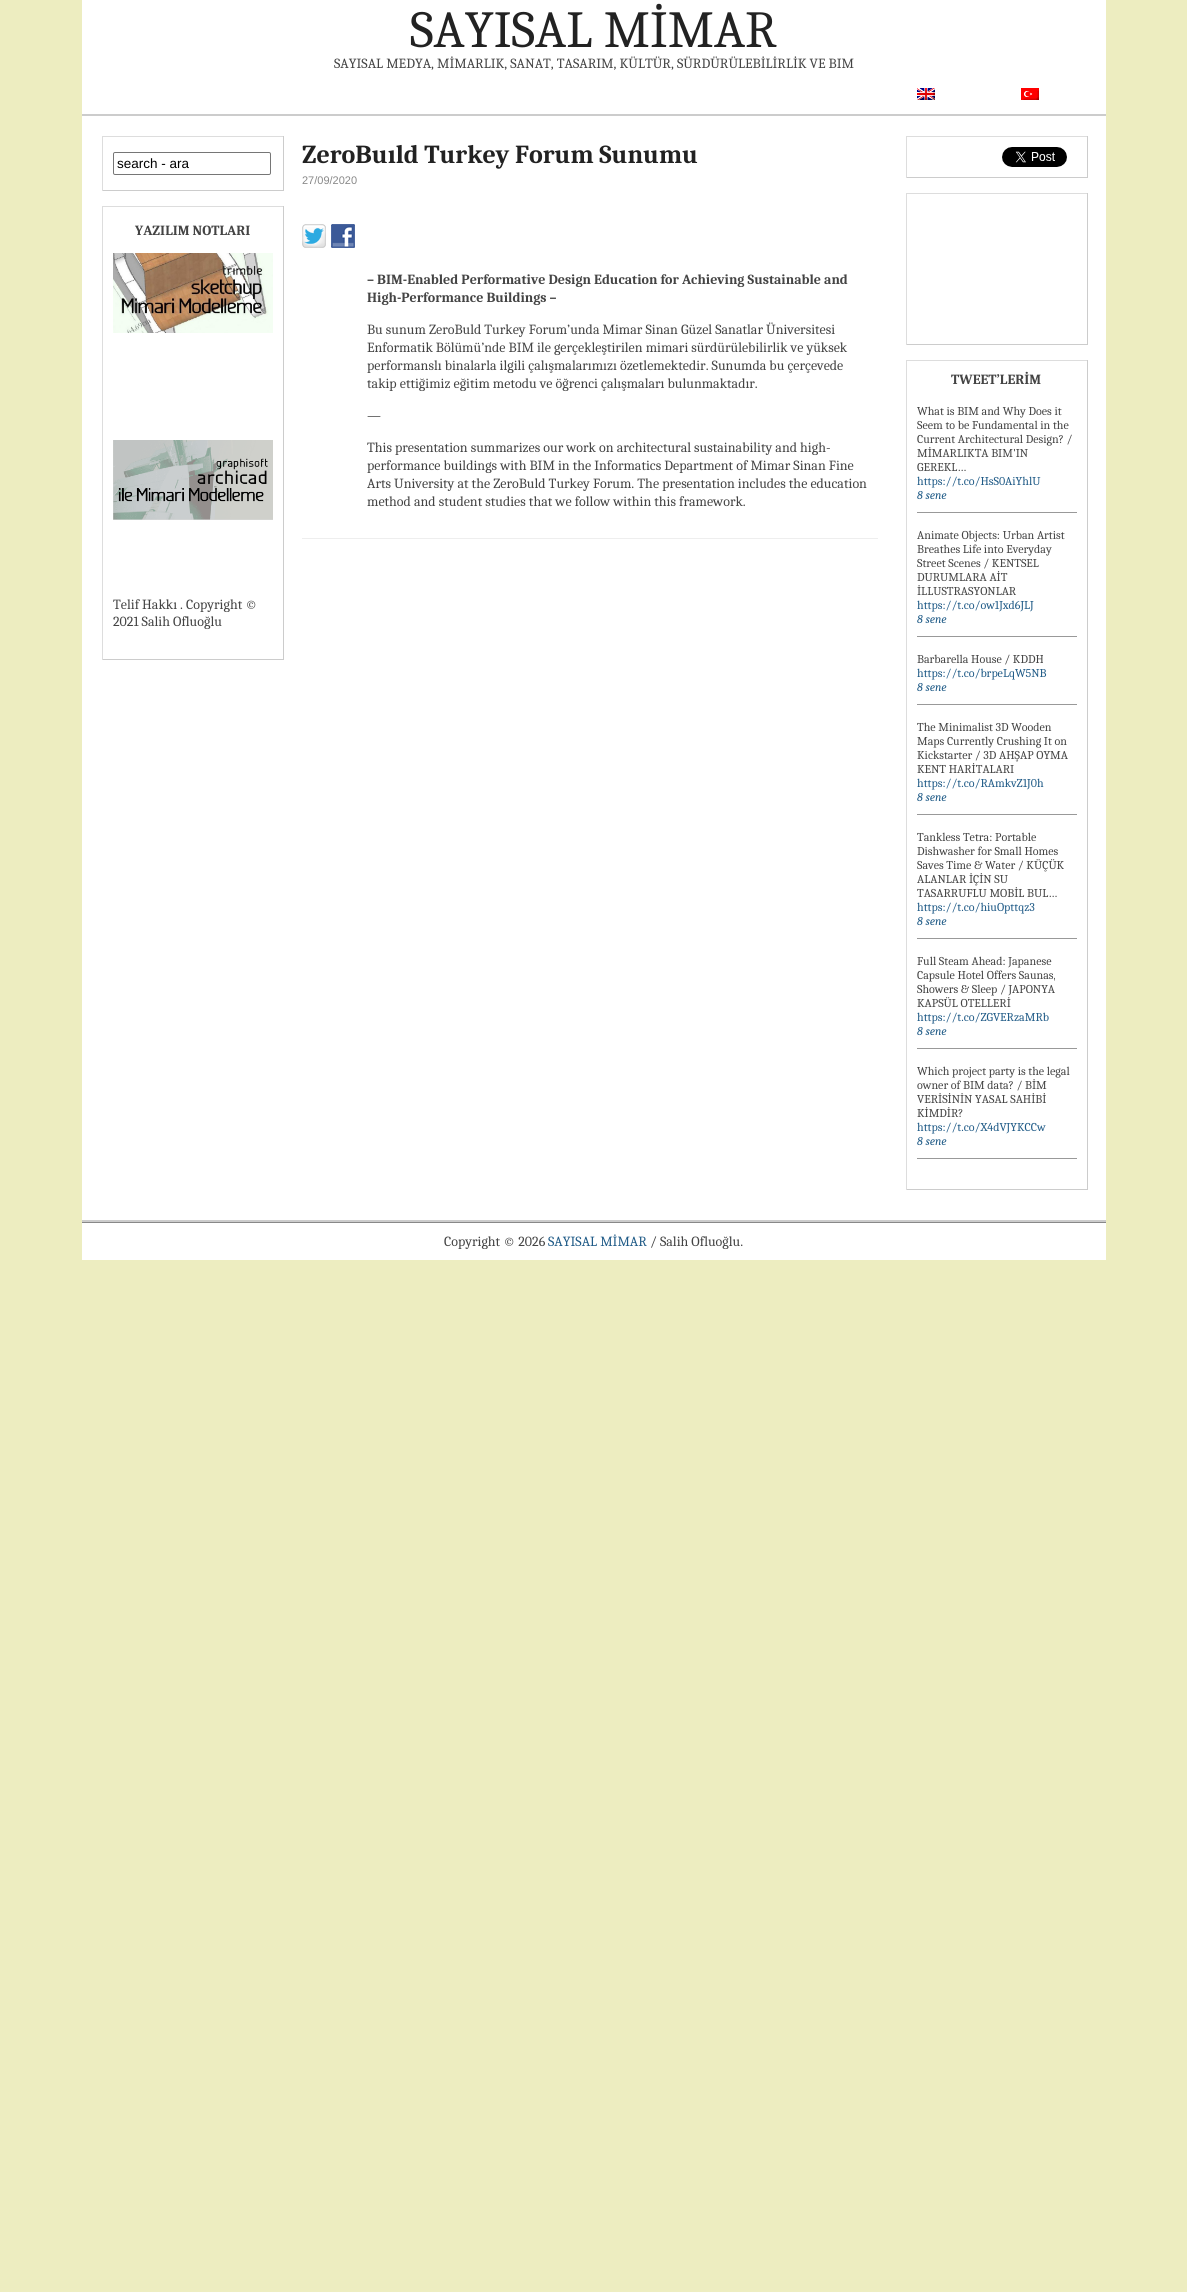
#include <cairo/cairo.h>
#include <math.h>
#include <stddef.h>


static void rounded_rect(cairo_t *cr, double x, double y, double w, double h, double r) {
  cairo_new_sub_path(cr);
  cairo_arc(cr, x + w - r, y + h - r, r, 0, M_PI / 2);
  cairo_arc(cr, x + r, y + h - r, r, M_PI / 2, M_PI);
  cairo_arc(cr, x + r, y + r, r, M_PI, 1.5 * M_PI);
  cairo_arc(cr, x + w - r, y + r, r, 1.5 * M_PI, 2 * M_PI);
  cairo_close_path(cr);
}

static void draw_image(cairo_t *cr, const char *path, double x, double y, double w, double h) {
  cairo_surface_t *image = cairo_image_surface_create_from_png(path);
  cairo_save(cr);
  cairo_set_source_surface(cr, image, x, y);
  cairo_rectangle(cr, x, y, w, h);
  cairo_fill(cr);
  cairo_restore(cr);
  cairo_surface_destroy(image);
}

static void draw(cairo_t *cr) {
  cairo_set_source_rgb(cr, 237 / 255.0, 237 / 255.0, 192 / 255.0);
  cairo_paint(cr);
  cairo_set_source_rgb(cr, 1, 1, 1);
  cairo_rectangle(cr, 82, 0, 1024, 114);
  cairo_fill(cr);
  draw_image(cr, "images/1.png", 917, 88, 18, 12);
  draw_image(cr, "images/2.png", 1021, 88, 18, 12);
  cairo_rectangle(cr, 82, 116, 1024, 1104);
  cairo_fill(cr);
  cairo_set_source_rgb(cr, 204 / 255.0, 204 / 255.0, 204 / 255.0);
  cairo_rectangle(cr, 82, 114, 1024, 2);
  cairo_fill(cr);
  cairo_rectangle(cr, 82, 1220, 1024, 2);
  cairo_fill(cr);
  cairo_set_source_rgb(cr, 221 / 255.0, 221 / 255.0, 221 / 255.0);
  cairo_rectangle(cr, 102, 136, 182, 1);
  cairo_fill(cr);
  cairo_set_source_rgb(cr, 204 / 255.0, 204 / 255.0, 204 / 255.0);
  cairo_rectangle(cr, 283, 136, 1, 55);
  cairo_fill(cr);
  cairo_rectangle(cr, 102, 190, 182, 1);
  cairo_fill(cr);
  cairo_set_source_rgb(cr, 221 / 255.0, 221 / 255.0, 221 / 255.0);
  cairo_rectangle(cr, 102, 136, 1, 55);
  cairo_fill(cr);
  rounded_rect(cr, 113.5, 152.5, 157, 22, 1.5);
  cairo_set_source_rgb(cr, 118 / 255.0, 118 / 255.0, 118 / 255.0);
  cairo_set_line_width(cr, 1);
  cairo_stroke(cr);
  cairo_set_source_rgb(cr, 221 / 255.0, 221 / 255.0, 221 / 255.0);
  cairo_rectangle(cr, 102, 206, 182, 1);
  cairo_fill(cr);
  cairo_set_source_rgb(cr, 204 / 255.0, 204 / 255.0, 204 / 255.0);
  cairo_rectangle(cr, 283, 206, 1, 454);
  cairo_fill(cr);
  cairo_rectangle(cr, 102, 659, 182, 1);
  cairo_fill(cr);
  cairo_set_source_rgb(cr, 221 / 255.0, 221 / 255.0, 221 / 255.0);
  cairo_rectangle(cr, 102, 206, 1, 454);
  cairo_fill(cr);
  draw_image(cr, "images/3.png", 113, 253, 160, 80);
  draw_image(cr, "images/4.png", 113, 440, 160, 80);
  cairo_set_source_rgb(cr, 238 / 255.0, 238 / 255.0, 238 / 255.0);
  cairo_rectangle(cr, 302, 538, 576, 1);
  cairo_fill(cr);
  draw_image(cr, "images/5.png", 302, 224, 24, 24);
  draw_image(cr, "images/6.png", 331, 224, 24, 24);
  cairo_set_source_rgb(cr, 221 / 255.0, 221 / 255.0, 221 / 255.0);
  cairo_rectangle(cr, 906, 136, 182, 1);
  cairo_fill(cr);
  cairo_set_source_rgb(cr, 204 / 255.0, 204 / 255.0, 204 / 255.0);
  cairo_rectangle(cr, 1087, 136, 1, 42);
  cairo_fill(cr);
  cairo_rectangle(cr, 906, 177, 182, 1);
  cairo_fill(cr);
  cairo_set_source_rgb(cr, 221 / 255.0, 221 / 255.0, 221 / 255.0);
  cairo_rectangle(cr, 906, 136, 1, 42);
  cairo_fill(cr);
  draw_image(cr, "images/7.png", 1002, 147, 65, 20);
  cairo_rectangle(cr, 906, 193, 182, 1);
  cairo_fill(cr);
  cairo_set_source_rgb(cr, 204 / 255.0, 204 / 255.0, 204 / 255.0);
  cairo_rectangle(cr, 1087, 193, 1, 152);
  cairo_fill(cr);
  cairo_rectangle(cr, 906, 344, 182, 1);
  cairo_fill(cr);
  cairo_set_source_rgb(cr, 221 / 255.0, 221 / 255.0, 221 / 255.0);
  cairo_rectangle(cr, 906, 193, 1, 152);
  cairo_fill(cr);
  cairo_rectangle(cr, 906, 360, 182, 1);
  cairo_fill(cr);
  cairo_set_source_rgb(cr, 204 / 255.0, 204 / 255.0, 204 / 255.0);
  cairo_rectangle(cr, 1087, 360, 1, 830);
  cairo_fill(cr);
  cairo_rectangle(cr, 906, 1189, 182, 1);
  cairo_fill(cr);
  cairo_set_source_rgb(cr, 221 / 255.0, 221 / 255.0, 221 / 255.0);
  cairo_rectangle(cr, 906, 360, 1, 830);
  cairo_fill(cr);
  cairo_set_source_rgb(cr, 153 / 255.0, 153 / 255.0, 153 / 255.0);
  cairo_rectangle(cr, 917, 512, 160, 1);
  cairo_fill(cr);
  cairo_rectangle(cr, 917, 636, 160, 1);
  cairo_fill(cr);
  cairo_rectangle(cr, 917, 704, 160, 1);
  cairo_fill(cr);
  cairo_rectangle(cr, 917, 814, 160, 1);
  cairo_fill(cr);
  cairo_rectangle(cr, 917, 938, 160, 1);
  cairo_fill(cr);
  cairo_rectangle(cr, 917, 1048, 160, 1);
  cairo_fill(cr);
  cairo_rectangle(cr, 917, 1158, 160, 1);
  cairo_fill(cr);
  cairo_set_source_rgb(cr, 1, 1, 1);
  cairo_rectangle(cr, 82, 1223, 1024, 37);
  cairo_fill(cr);
  cairo_set_source_rgb(cr, 136 / 255.0, 136 / 255.0, 136 / 255.0);
  cairo_rectangle(cr, 82, 1222, 1024, 1);
  cairo_fill(cr);
  cairo_select_font_face(cr, "Caladea", CAIRO_FONT_SLANT_NORMAL, CAIRO_FONT_WEIGHT_NORMAL);
  cairo_set_font_size(cr, 52);
  cairo_set_source_rgb(cr, 34 / 255.0, 34 / 255.0, 34 / 255.0);
  cairo_move_to(cr, 410, 47);
  cairo_show_text(cr, "SAYISAL MİMAR");
  cairo_set_font_size(cr, 14);
  cairo_set_source_rgb(cr, 68 / 255.0, 68 / 255.0, 68 / 255.0);
  cairo_move_to(cr, 334, 68);
  cairo_show_text(cr, "SAYISAL MEDYA, MİMARLIK, SANAT, TASARIM, KÜLTÜR, SÜRDÜRÜLEBİLİRLİK VE BIM");
  cairo_select_font_face(cr, "Liberation Sans", CAIRO_FONT_SLANT_NORMAL, CAIRO_FONT_WEIGHT_NORMAL);
  cairo_set_font_size(cr, 13.5);
  cairo_set_source_rgb(cr, 0, 0, 0);
  cairo_move_to(cr, 117, 168);
  cairo_show_text(cr, "search - ara");
  cairo_select_font_face(cr, "Caladea", CAIRO_FONT_SLANT_NORMAL, CAIRO_FONT_WEIGHT_BOLD);
  cairo_set_font_size(cr, 14);
  cairo_set_source_rgb(cr, 68 / 255.0, 68 / 255.0, 68 / 255.0);
  cairo_move_to(cr, 135, 235);
  cairo_show_text(cr, "YAZILIM NOTLARI");
  cairo_select_font_face(cr, "Caladea", CAIRO_FONT_SLANT_NORMAL, CAIRO_FONT_WEIGHT_NORMAL);
  cairo_move_to(cr, 113, 609);
  cairo_show_text(cr, "Telif Hakkı . Copyright ©");
  cairo_move_to(cr, 113, 626);
  cairo_show_text(cr, "2021 Salih Ofluoğlu");
  cairo_select_font_face(cr, "Caladea", CAIRO_FONT_SLANT_NORMAL, CAIRO_FONT_WEIGHT_BOLD);
  cairo_set_font_size(cr, 26);
  cairo_set_source_rgb(cr, 34 / 255.0, 34 / 255.0, 34 / 255.0);
  cairo_move_to(cr, 302, 163);
  cairo_show_text(cr, "ZeroBuıld Turkey Forum Sunumu");
  cairo_select_font_face(cr, "Liberation Sans", CAIRO_FONT_SLANT_NORMAL, CAIRO_FONT_WEIGHT_NORMAL);
  cairo_set_font_size(cr, 11);
  cairo_set_source_rgb(cr, 136 / 255.0, 136 / 255.0, 136 / 255.0);
  cairo_move_to(cr, 302, 184);
  cairo_show_text(cr, "27/09/2020");
  cairo_select_font_face(cr, "Caladea", CAIRO_FONT_SLANT_NORMAL, CAIRO_FONT_WEIGHT_BOLD);
  cairo_set_font_size(cr, 14);
  cairo_set_source_rgb(cr, 68 / 255.0, 68 / 255.0, 68 / 255.0);
  cairo_move_to(cr, 367, 284);
  cairo_show_text(cr, "– BIM-Enabled Performative Design Education for Achieving Sustainable and");
  cairo_move_to(cr, 367, 302);
  cairo_show_text(cr, "High-Performance Buildings –");
  cairo_select_font_face(cr, "Caladea", CAIRO_FONT_SLANT_NORMAL, CAIRO_FONT_WEIGHT_NORMAL);
  cairo_move_to(cr, 367, 334);
  cairo_show_text(cr, "Bu sunum ZeroBuld Turkey Forum’unda Mimar Sinan Güzel Sanatlar Üniversitesi");
  cairo_move_to(cr, 367, 352);
  cairo_show_text(cr, "Enformatik Bölümü’nde BIM ile gerçekleştirilen mimari sürdürülebilirlik ve yüksek");
  cairo_move_to(cr, 367, 370);
  cairo_show_text(cr, "performanslı binalarla ilgili çalışmalarımızı özetlemektedir. Sunumda bu çerçevede");
  cairo_move_to(cr, 367, 388);
  cairo_show_text(cr, "takip ettiğimiz eğitim metodu ve öğrenci çalışmaları bulunmaktadır.");
  cairo_move_to(cr, 367, 420);
  cairo_show_text(cr, "—");
  cairo_move_to(cr, 367, 452);
  cairo_show_text(cr, "This presentation summarizes our work on architectural sustainability and high-");
  cairo_move_to(cr, 367, 470);
  cairo_show_text(cr, "performance buildings with BIM in the Informatics Department of Mimar Sinan Fine");
  cairo_move_to(cr, 367, 488);
  cairo_show_text(cr, "Arts University at the ZeroBuld Turkey Forum. The presentation includes the education");
  cairo_move_to(cr, 367, 506);
  cairo_show_text(cr, "method and student studies that we follow within this framework.");
  cairo_select_font_face(cr, "Caladea", CAIRO_FONT_SLANT_NORMAL, CAIRO_FONT_WEIGHT_BOLD);
  cairo_move_to(cr, 951, 384);
  cairo_show_text(cr, "TWEET’LERİM");
  cairo_select_font_face(cr, "Caladea", CAIRO_FONT_SLANT_NORMAL, CAIRO_FONT_WEIGHT_NORMAL);
  cairo_set_font_size(cr, 12);
  cairo_move_to(cr, 917, 415);
  cairo_show_text(cr, "What is BIM and Why Does it");
  cairo_move_to(cr, 917, 429);
  cairo_show_text(cr, "Seem to be Fundamental in the");
  cairo_move_to(cr, 917, 443);
  cairo_show_text(cr, "Current Architectural Design? /");
  cairo_move_to(cr, 917, 457);
  cairo_show_text(cr, "MİMARLIKTA BIM'IN");
  cairo_move_to(cr, 917, 471);
  cairo_show_text(cr, "GEREKL…");
  cairo_set_source_rgb(cr, 32 / 255.0, 91 / 255.0, 135 / 255.0);
  cairo_move_to(cr, 917, 485);
  cairo_show_text(cr, "https://t.co/HsS0AiYhlU");
  cairo_select_font_face(cr, "Caladea", CAIRO_FONT_SLANT_ITALIC, CAIRO_FONT_WEIGHT_NORMAL);
  cairo_move_to(cr, 917, 499);
  cairo_show_text(cr, "8 sene");
  cairo_select_font_face(cr, "Caladea", CAIRO_FONT_SLANT_NORMAL, CAIRO_FONT_WEIGHT_NORMAL);
  cairo_set_source_rgb(cr, 68 / 255.0, 68 / 255.0, 68 / 255.0);
  cairo_move_to(cr, 917, 539);
  cairo_show_text(cr, "Animate Objects: Urban Artist");
  cairo_move_to(cr, 917, 553);
  cairo_show_text(cr, "Breathes Life into Everyday");
  cairo_move_to(cr, 917, 567);
  cairo_show_text(cr, "Street Scenes / KENTSEL");
  cairo_move_to(cr, 917, 581);
  cairo_show_text(cr, "DURUMLARA AİT");
  cairo_move_to(cr, 917, 595);
  cairo_show_text(cr, "İLLUSTRASYONLAR");
  cairo_set_source_rgb(cr, 32 / 255.0, 91 / 255.0, 135 / 255.0);
  cairo_move_to(cr, 917, 609);
  cairo_show_text(cr, "https://t.co/ow1Jxd6JLJ");
  cairo_select_font_face(cr, "Caladea", CAIRO_FONT_SLANT_ITALIC, CAIRO_FONT_WEIGHT_NORMAL);
  cairo_move_to(cr, 917, 623);
  cairo_show_text(cr, "8 sene");
  cairo_select_font_face(cr, "Caladea", CAIRO_FONT_SLANT_NORMAL, CAIRO_FONT_WEIGHT_NORMAL);
  cairo_set_source_rgb(cr, 68 / 255.0, 68 / 255.0, 68 / 255.0);
  cairo_move_to(cr, 917, 663);
  cairo_show_text(cr, "Barbarella House / KDDH");
  cairo_set_source_rgb(cr, 32 / 255.0, 91 / 255.0, 135 / 255.0);
  cairo_move_to(cr, 917, 677);
  cairo_show_text(cr, "https://t.co/brpeLqW5NB");
  cairo_select_font_face(cr, "Caladea", CAIRO_FONT_SLANT_ITALIC, CAIRO_FONT_WEIGHT_NORMAL);
  cairo_move_to(cr, 917, 691);
  cairo_show_text(cr, "8 sene");
  cairo_select_font_face(cr, "Caladea", CAIRO_FONT_SLANT_NORMAL, CAIRO_FONT_WEIGHT_NORMAL);
  cairo_set_source_rgb(cr, 68 / 255.0, 68 / 255.0, 68 / 255.0);
  cairo_move_to(cr, 917, 731);
  cairo_show_text(cr, "The Minimalist 3D Wooden");
  cairo_move_to(cr, 917, 745);
  cairo_show_text(cr, "Maps Currently Crushing It on");
  cairo_move_to(cr, 917, 759);
  cairo_show_text(cr, "Kickstarter / 3D AHŞAP OYMA");
  cairo_move_to(cr, 917, 773);
  cairo_show_text(cr, "KENT HARİTALARI");
  cairo_set_source_rgb(cr, 32 / 255.0, 91 / 255.0, 135 / 255.0);
  cairo_move_to(cr, 917, 787);
  cairo_show_text(cr, "https://t.co/RAmkvZ1J0h");
  cairo_select_font_face(cr, "Caladea", CAIRO_FONT_SLANT_ITALIC, CAIRO_FONT_WEIGHT_NORMAL);
  cairo_move_to(cr, 917, 801);
  cairo_show_text(cr, "8 sene");
  cairo_select_font_face(cr, "Caladea", CAIRO_FONT_SLANT_NORMAL, CAIRO_FONT_WEIGHT_NORMAL);
  cairo_set_source_rgb(cr, 68 / 255.0, 68 / 255.0, 68 / 255.0);
  cairo_move_to(cr, 917, 841);
  cairo_show_text(cr, "Tankless Tetra: Portable");
  cairo_move_to(cr, 917, 855);
  cairo_show_text(cr, "Dishwasher for Small Homes");
  cairo_move_to(cr, 917, 869);
  cairo_show_text(cr, "Saves Time & Water / KÜÇÜK");
  cairo_move_to(cr, 917, 883);
  cairo_show_text(cr, "ALANLAR İÇİN SU");
  cairo_move_to(cr, 917, 897);
  cairo_show_text(cr, "TASARRUFLU MOBİL BUL…");
  cairo_set_source_rgb(cr, 32 / 255.0, 91 / 255.0, 135 / 255.0);
  cairo_move_to(cr, 917, 911);
  cairo_show_text(cr, "https://t.co/hiuOpttqz3");
  cairo_select_font_face(cr, "Caladea", CAIRO_FONT_SLANT_ITALIC, CAIRO_FONT_WEIGHT_NORMAL);
  cairo_move_to(cr, 917, 925);
  cairo_show_text(cr, "8 sene");
  cairo_select_font_face(cr, "Caladea", CAIRO_FONT_SLANT_NORMAL, CAIRO_FONT_WEIGHT_NORMAL);
  cairo_set_source_rgb(cr, 68 / 255.0, 68 / 255.0, 68 / 255.0);
  cairo_move_to(cr, 917, 965);
  cairo_show_text(cr, "Full Steam Ahead: Japanese");
  cairo_move_to(cr, 917, 979);
  cairo_show_text(cr, "Capsule Hotel Offers Saunas,");
  cairo_move_to(cr, 917, 993);
  cairo_show_text(cr, "Showers & Sleep / JAPONYA");
  cairo_move_to(cr, 917, 1007);
  cairo_show_text(cr, "KAPSÜL OTELLERİ");
  cairo_set_source_rgb(cr, 32 / 255.0, 91 / 255.0, 135 / 255.0);
  cairo_move_to(cr, 917, 1021);
  cairo_show_text(cr, "https://t.co/ZGVERzaMRb");
  cairo_select_font_face(cr, "Caladea", CAIRO_FONT_SLANT_ITALIC, CAIRO_FONT_WEIGHT_NORMAL);
  cairo_move_to(cr, 917, 1035);
  cairo_show_text(cr, "8 sene");
  cairo_select_font_face(cr, "Caladea", CAIRO_FONT_SLANT_NORMAL, CAIRO_FONT_WEIGHT_NORMAL);
  cairo_set_source_rgb(cr, 68 / 255.0, 68 / 255.0, 68 / 255.0);
  cairo_move_to(cr, 917, 1075);
  cairo_show_text(cr, "Which project party is the legal");
  cairo_move_to(cr, 917, 1089);
  cairo_show_text(cr, "owner of BIM data? / BİM");
  cairo_move_to(cr, 917, 1103);
  cairo_show_text(cr, "VERİSİNİN YASAL SAHİBİ");
  cairo_move_to(cr, 917, 1117);
  cairo_show_text(cr, "KİMDİR?");
  cairo_set_source_rgb(cr, 32 / 255.0, 91 / 255.0, 135 / 255.0);
  cairo_move_to(cr, 917, 1131);
  cairo_show_text(cr, "https://t.co/X4dVJYKCCw");
  cairo_select_font_face(cr, "Caladea", CAIRO_FONT_SLANT_ITALIC, CAIRO_FONT_WEIGHT_NORMAL);
  cairo_move_to(cr, 917, 1145);
  cairo_show_text(cr, "8 sene");
  cairo_select_font_face(cr, "Caladea", CAIRO_FONT_SLANT_NORMAL, CAIRO_FONT_WEIGHT_NORMAL);
  cairo_set_font_size(cr, 14);
  cairo_set_source_rgb(cr, 68 / 255.0, 68 / 255.0, 68 / 255.0);
  cairo_move_to(cr, 444, 1246);
  cairo_show_text(cr, "Copyright © 2026");
  cairo_set_source_rgb(cr, 32 / 255.0, 91 / 255.0, 135 / 255.0);
  cairo_move_to(cr, 548, 1246);
  cairo_show_text(cr, "SAYISAL MİMAR");
  cairo_set_source_rgb(cr, 68 / 255.0, 68 / 255.0, 68 / 255.0);
  cairo_move_to(cr, 650, 1246);
  cairo_show_text(cr, "/ Salih Ofluoğlu.");
}

int main(void) {
  cairo_surface_t *surface = cairo_image_surface_create(CAIRO_FORMAT_RGB24, 1187, 2292);
  cairo_t *cr = cairo_create(surface);
  cairo_font_options_t *options = cairo_font_options_create();
  cairo_font_options_set_hint_metrics(options, CAIRO_HINT_METRICS_OFF);
  cairo_font_options_set_hint_style(options, CAIRO_HINT_STYLE_NONE);
  cairo_set_font_options(cr, options);
  cairo_set_miter_limit(cr, 4);
  draw(cr);
  cairo_surface_write_to_png(surface, "out.png");
  cairo_font_options_destroy(options);
  cairo_destroy(cr);
  cairo_surface_destroy(surface);
  return 0;
}
